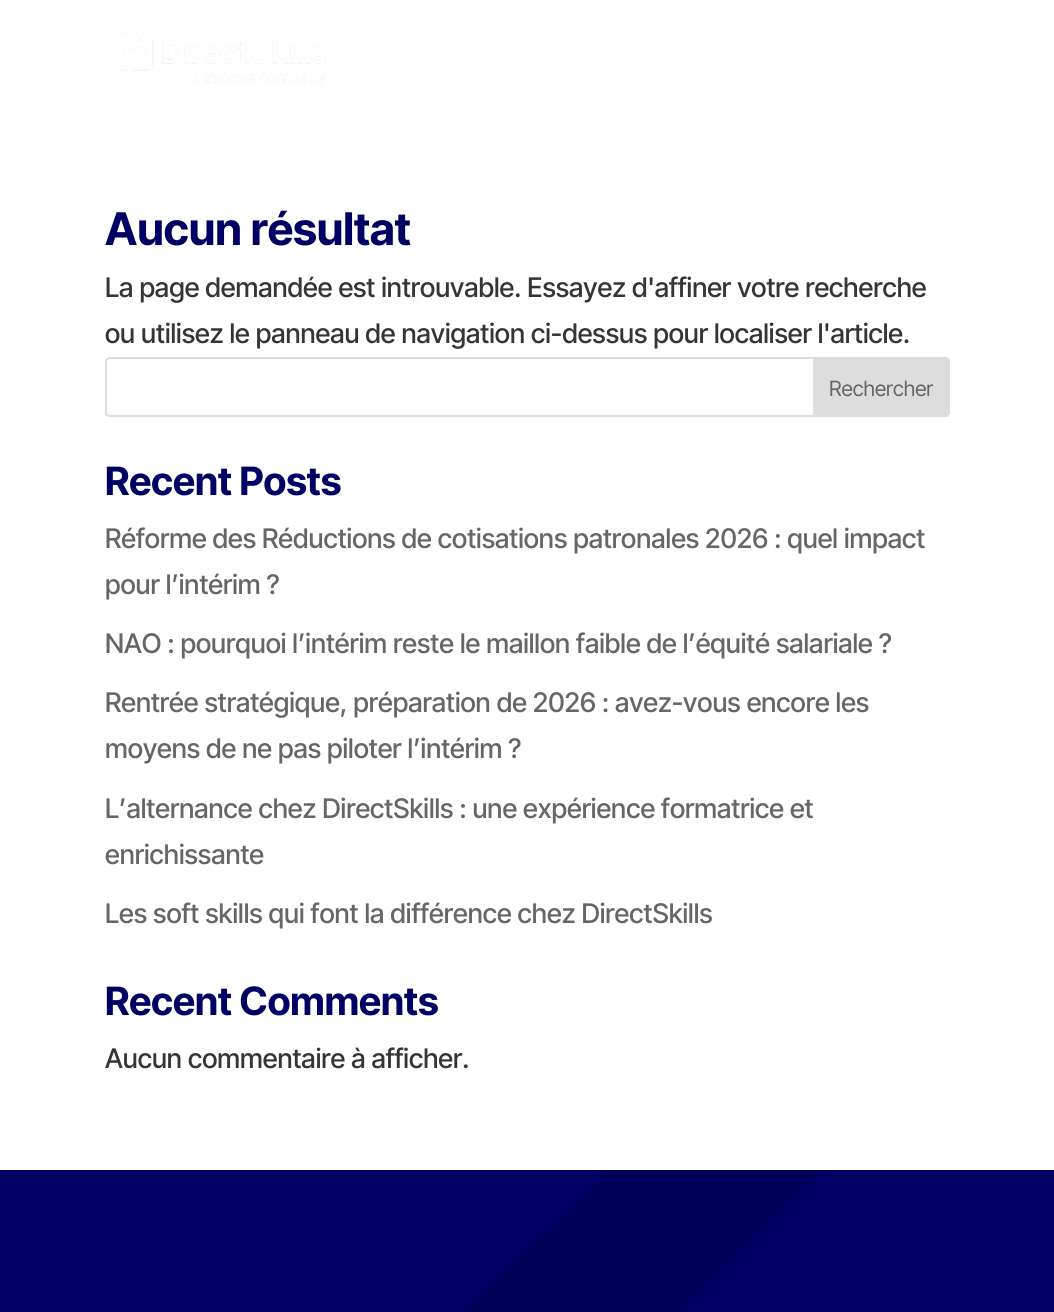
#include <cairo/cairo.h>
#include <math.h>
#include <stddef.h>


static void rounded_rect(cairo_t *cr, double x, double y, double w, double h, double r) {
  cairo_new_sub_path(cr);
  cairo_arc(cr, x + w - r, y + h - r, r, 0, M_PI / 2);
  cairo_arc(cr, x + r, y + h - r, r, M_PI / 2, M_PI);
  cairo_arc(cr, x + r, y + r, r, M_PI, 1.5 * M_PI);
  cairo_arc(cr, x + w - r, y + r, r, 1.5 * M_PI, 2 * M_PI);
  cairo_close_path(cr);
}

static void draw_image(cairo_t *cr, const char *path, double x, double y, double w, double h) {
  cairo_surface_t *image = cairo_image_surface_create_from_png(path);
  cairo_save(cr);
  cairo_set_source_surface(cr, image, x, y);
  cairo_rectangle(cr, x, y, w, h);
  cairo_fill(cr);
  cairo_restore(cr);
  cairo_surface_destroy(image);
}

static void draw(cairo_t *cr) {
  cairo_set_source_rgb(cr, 1, 1, 1);
  cairo_paint(cr);
  draw_image(cr, "images/1.png", 117, 33, 209, 54);
  rounded_rect(cr, 106, 358, 843, 58, 4);
  cairo_set_source_rgb(cr, 221 / 255.0, 221 / 255.0, 221 / 255.0);
  cairo_stroke(cr);
  cairo_new_path(cr);
  cairo_move_to(cr, 814, 358);
  cairo_line_to(cr, 945, 358);
  cairo_curve_to(cr, 947, 358, 949, 360, 949, 362);
  cairo_line_to(cr, 949, 412);
  cairo_curve_to(cr, 949, 414, 947, 416, 945, 416);
  cairo_line_to(cr, 814, 416);
  cairo_close_path(cr);
  cairo_fill_preserve(cr);
  cairo_stroke(cr);
  cairo_set_source_rgb(cr, 0, 0, 100 / 255.0);
  cairo_rectangle(cr, 0, 1170, 1054, 142);
  cairo_fill(cr);
  draw_image(cr, "images/2.png", 464, 1170, 360, 142);
  cairo_select_font_face(cr, "Inter Tight", CAIRO_FONT_SLANT_NORMAL, CAIRO_FONT_WEIGHT_BOLD);
  cairo_set_font_size(cr, 45);
  cairo_move_to(cr, 105, 245);
  cairo_show_text(cr, "Aucun résultat");
  cairo_select_font_face(cr, "Inter Tight Medium", CAIRO_FONT_SLANT_NORMAL, CAIRO_FONT_WEIGHT_NORMAL);
  cairo_set_font_size(cr, 27);
  cairo_set_source_rgb(cr, 53 / 255.0, 53 / 255.0, 53 / 255.0);
  cairo_move_to(cr, 105, 297);
  cairo_show_text(cr, "La page demandée est introuvable. Essayez d'affiner votre recherche");
  cairo_move_to(cr, 105, 343);
  cairo_show_text(cr, "ou utilisez le panneau de navigation ci-dessus pour localiser l'article.");
  cairo_select_font_face(cr, "Inter Tight", CAIRO_FONT_SLANT_NORMAL, CAIRO_FONT_WEIGHT_NORMAL);
  cairo_set_font_size(cr, 21);
  cairo_set_source_rgb(cr, 102 / 255.0, 102 / 255.0, 102 / 255.0);
  cairo_move_to(cr, 829, 396);
  cairo_show_text(cr, "Rechercher");
  cairo_select_font_face(cr, "Inter Tight", CAIRO_FONT_SLANT_NORMAL, CAIRO_FONT_WEIGHT_BOLD);
  cairo_set_font_size(cr, 39);
  cairo_set_source_rgb(cr, 0, 0, 100 / 255.0);
  cairo_move_to(cr, 105, 495);
  cairo_show_text(cr, "Recent Posts");
  cairo_select_font_face(cr, "Inter Tight Medium", CAIRO_FONT_SLANT_NORMAL, CAIRO_FONT_WEIGHT_NORMAL);
  cairo_set_font_size(cr, 27);
  cairo_set_source_rgb(cr, 102 / 255.0, 102 / 255.0, 102 / 255.0);
  cairo_move_to(cr, 105, 548);
  cairo_show_text(cr, "Réforme des Réductions de cotisations patronales 2026 : quel impact");
  cairo_move_to(cr, 105, 594);
  cairo_show_text(cr, "pour l’intérim ?");
  cairo_move_to(cr, 105, 653);
  cairo_show_text(cr, "NAO : pourquoi l’intérim reste le maillon faible de l’équité salariale ?");
  cairo_move_to(cr, 105, 712);
  cairo_show_text(cr, "Rentrée stratégique, préparation de 2026 : avez-vous encore les");
  cairo_move_to(cr, 105, 758);
  cairo_show_text(cr, "moyens de ne pas piloter l’intérim ?");
  cairo_move_to(cr, 105, 818);
  cairo_show_text(cr, "L’alternance chez DirectSkills : une expérience formatrice et");
  cairo_move_to(cr, 105, 864);
  cairo_show_text(cr, "enrichissante");
  cairo_move_to(cr, 105, 923);
  cairo_show_text(cr, "Les soft skills qui font la différence chez DirectSkills");
  cairo_select_font_face(cr, "Inter Tight", CAIRO_FONT_SLANT_NORMAL, CAIRO_FONT_WEIGHT_BOLD);
  cairo_set_font_size(cr, 39);
  cairo_set_source_rgb(cr, 0, 0, 100 / 255.0);
  cairo_move_to(cr, 105, 1015);
  cairo_show_text(cr, "Recent Comments");
  cairo_select_font_face(cr, "Inter Tight Medium", CAIRO_FONT_SLANT_NORMAL, CAIRO_FONT_WEIGHT_NORMAL);
  cairo_set_font_size(cr, 27);
  cairo_set_source_rgb(cr, 53 / 255.0, 53 / 255.0, 53 / 255.0);
  cairo_move_to(cr, 105, 1068);
  cairo_show_text(cr, "Aucun commentaire à afficher.");
}

int main(void) {
  cairo_surface_t *surface = cairo_image_surface_create(CAIRO_FORMAT_RGB24, 1054, 1312);
  cairo_t *cr = cairo_create(surface);
  cairo_font_options_t *options = cairo_font_options_create();
  cairo_font_options_set_hint_metrics(options, CAIRO_HINT_METRICS_OFF);
  cairo_font_options_set_hint_style(options, CAIRO_HINT_STYLE_NONE);
  cairo_set_font_options(cr, options);
  cairo_set_miter_limit(cr, 4);
  draw(cr);
  cairo_surface_write_to_png(surface, "out.png");
  cairo_font_options_destroy(options);
  cairo_destroy(cr);
  cairo_surface_destroy(surface);
  return 0;
}
